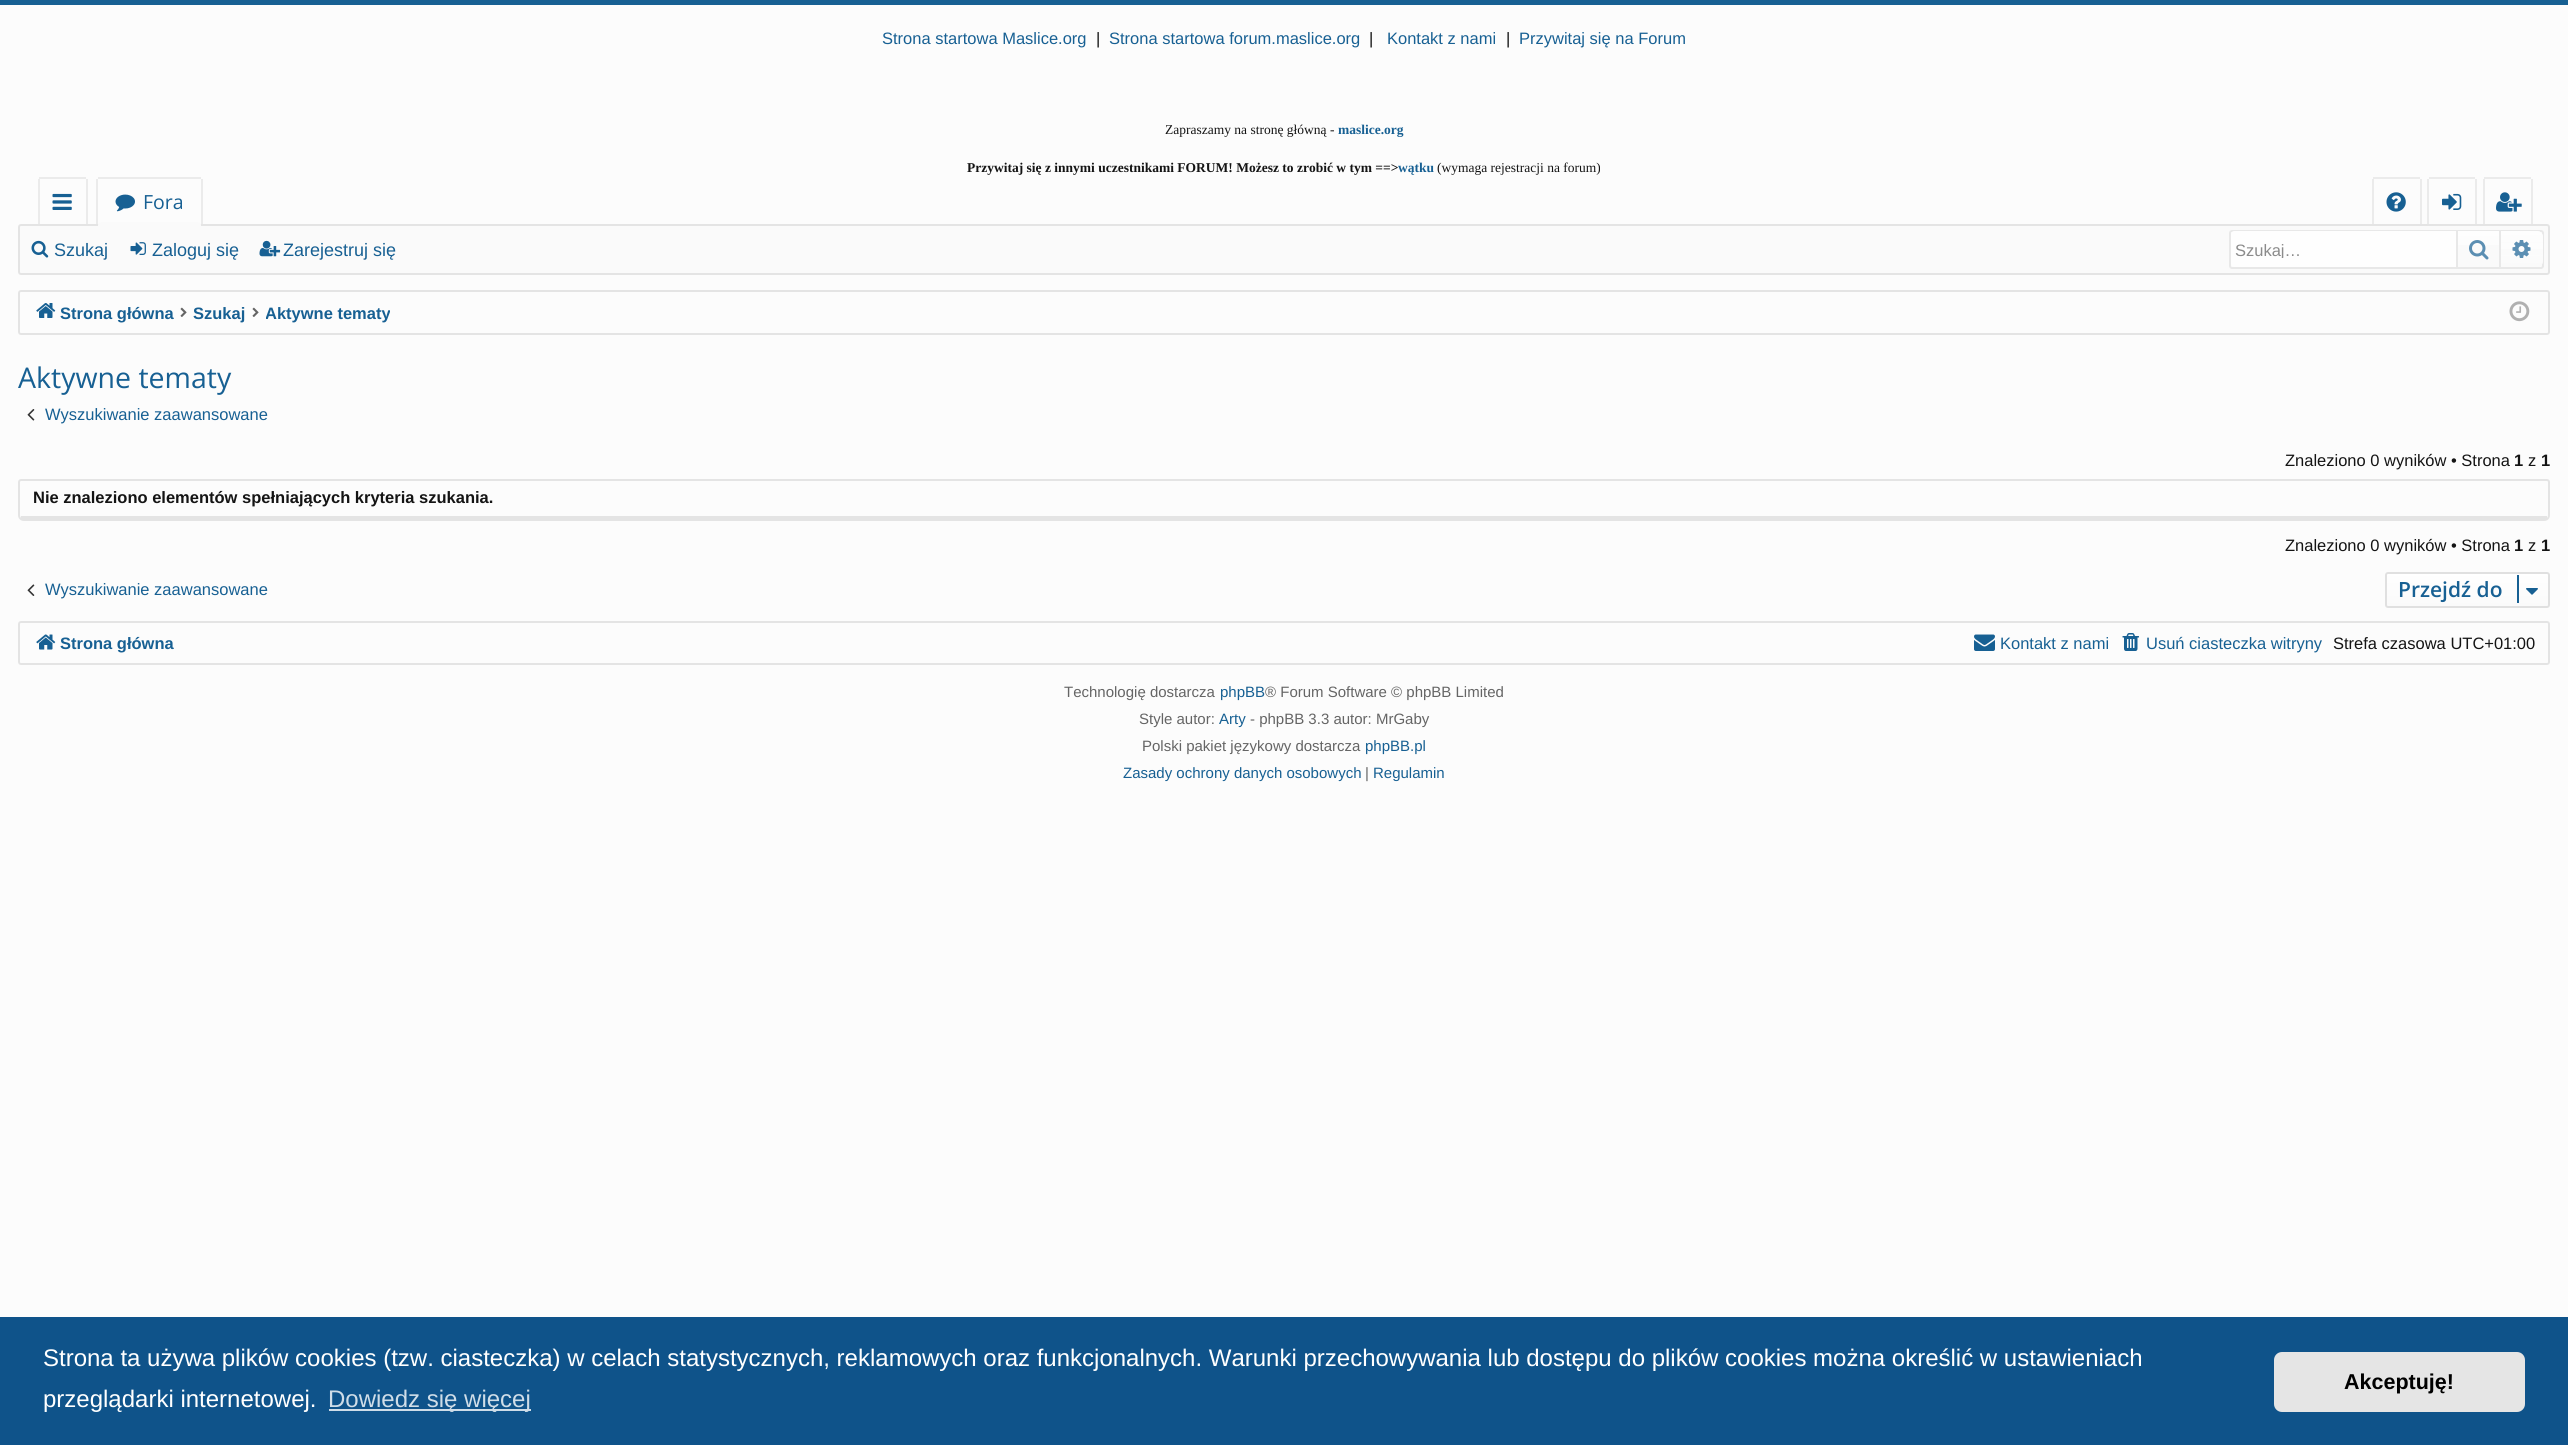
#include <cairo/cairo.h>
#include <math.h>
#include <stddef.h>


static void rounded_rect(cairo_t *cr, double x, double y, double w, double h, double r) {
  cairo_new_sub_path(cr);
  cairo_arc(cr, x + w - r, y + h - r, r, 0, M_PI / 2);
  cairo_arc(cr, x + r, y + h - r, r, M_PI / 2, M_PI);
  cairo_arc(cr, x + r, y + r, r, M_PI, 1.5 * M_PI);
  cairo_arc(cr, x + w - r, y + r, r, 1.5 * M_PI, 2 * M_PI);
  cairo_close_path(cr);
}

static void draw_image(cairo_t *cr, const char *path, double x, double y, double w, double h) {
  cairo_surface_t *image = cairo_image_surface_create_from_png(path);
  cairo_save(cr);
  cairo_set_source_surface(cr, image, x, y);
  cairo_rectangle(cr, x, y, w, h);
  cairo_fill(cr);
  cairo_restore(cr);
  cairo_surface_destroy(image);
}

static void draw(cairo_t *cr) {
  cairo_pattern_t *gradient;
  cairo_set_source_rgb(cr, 252 / 255.0, 252 / 255.0, 252 / 255.0);
  cairo_paint(cr);
  cairo_set_source_rgb(cr, 23 / 255.0, 96 / 255.0, 147 / 255.0);
  cairo_rectangle(cr, 0, 0, 2568, 5);
  cairo_fill(cr);
  cairo_set_source_rgb(cr, 235 / 255.0, 235 / 255.0, 235 / 255.0);
  cairo_rectangle(cr, 39, 177, 47, 2);
  cairo_fill(cr);
  cairo_rectangle(cr, 86, 179, 2, 46);
  cairo_fill(cr);
  cairo_rectangle(cr, 38, 179, 2, 46);
  cairo_fill(cr);
  draw_image(cr, "images/1.png", 52, 193, 20, 17);
  cairo_rectangle(cr, 98, 177, 103, 2);
  cairo_fill(cr);
  cairo_rectangle(cr, 201, 179, 2, 46);
  cairo_fill(cr);
  cairo_rectangle(cr, 96, 179, 2, 46);
  cairo_fill(cr);
  draw_image(cr, "images/2.png", 115, 194, 20, 18);
  cairo_rectangle(cr, 2420, 179, 2, 46);
  cairo_fill(cr);
  cairo_rectangle(cr, 2372, 179, 2, 46);
  cairo_fill(cr);
  cairo_rectangle(cr, 2475, 179, 2, 46);
  cairo_fill(cr);
  cairo_rectangle(cr, 2427, 179, 2, 46);
  cairo_fill(cr);
  cairo_rectangle(cr, 2531, 179, 2, 46);
  cairo_fill(cr);
  cairo_rectangle(cr, 2483, 179, 2, 46);
  cairo_fill(cr);
  cairo_set_source_rgb(cr, 250 / 255.0, 250 / 255.0, 250 / 255.0);
  rounded_rect(cr, 19, 225, 2530, 49, 2);
  cairo_fill_preserve(cr);
  cairo_set_source_rgb(cr, 228 / 255.0, 228 / 255.0, 228 / 255.0);
  cairo_stroke(cr);
  cairo_set_source_rgb(cr, 250 / 255.0, 250 / 255.0, 250 / 255.0);
  cairo_new_path(cr);
  cairo_move_to(cr, 101, 222);
  cairo_line_to(cr, 198, 222);
  cairo_curve_to(cr, 199.5, 222, 201, 223.5, 201, 225);
  cairo_line_to(cr, 201, 228);
  cairo_line_to(cr, 98, 228);
  cairo_line_to(cr, 98, 225);
  cairo_curve_to(cr, 98, 223.5, 99.5, 222, 101, 222);
  cairo_close_path(cr);
  cairo_fill(cr);
  cairo_set_source_rgb(cr, 235 / 255.0, 235 / 255.0, 235 / 255.0);
  cairo_rectangle(cr, 2373, 177, 47, 2);
  cairo_fill(cr);
  draw_image(cr, "images/3.png", 2386, 192, 20, 20);
  cairo_rectangle(cr, 2429, 177, 46, 2);
  cairo_fill(cr);
  draw_image(cr, "images/4.png", 2442, 193, 20, 17);
  cairo_rectangle(cr, 2484, 177, 47, 2);
  cairo_fill(cr);
  draw_image(cr, "images/5.png", 2496, 192, 26, 20);
  draw_image(cr, "images/6.png", 31, 240, 18, 18);
  draw_image(cr, "images/7.png", 130, 242, 16, 13);
  draw_image(cr, "images/8.png", 259, 240, 22, 17);
  rounded_rect(cr, 2230, 231, 313, 37, 2);
  cairo_set_source_rgb(cr, 232 / 255.0, 232 / 255.0, 232 / 255.0);
  cairo_stroke(cr);
  cairo_set_source_rgb(cr, 254 / 255.0, 254 / 255.0, 254 / 255.0);
  cairo_new_path(cr);
  cairo_move_to(cr, 2234, 231);
  cairo_line_to(cr, 2456, 231);
  cairo_line_to(cr, 2456, 267);
  cairo_line_to(cr, 2234, 267);
  cairo_curve_to(cr, 2232.5, 267, 2231, 265.5, 2231, 264);
  cairo_line_to(cr, 2231, 234);
  cairo_curve_to(cr, 2231, 232.5, 2232.5, 231, 2234, 231);
  cairo_close_path(cr);
  cairo_fill(cr);
  gradient = cairo_pattern_create_linear(2478, 231, 2478, 267);
  cairo_pattern_add_color_stop_rgba(gradient, 0, 254 / 255.0, 254 / 255.0, 254 / 255.0, 1);
  cairo_pattern_add_color_stop_rgba(gradient, 1, 250 / 255.0, 250 / 255.0, 250 / 255.0, 1);
  cairo_set_source(cr, gradient);
  cairo_pattern_destroy(gradient);
  cairo_rectangle(cr, 2458, 231, 41, 14);
  cairo_fill(cr);
  cairo_set_source_rgb(cr, 232 / 255.0, 232 / 255.0, 232 / 255.0);
  cairo_rectangle(cr, 2499, 231, 2, 36);
  cairo_fill(cr);
  cairo_rectangle(cr, 2456, 231, 2, 36);
  cairo_fill(cr);
  draw_image(cr, "images/9.png", 2469, 240, 20, 20);
  cairo_set_source_rgb(cr, 250 / 255.0, 250 / 255.0, 250 / 255.0);
  cairo_new_path(cr);
  cairo_move_to(cr, 2501, 231);
  cairo_line_to(cr, 2537, 231);
  cairo_curve_to(cr, 2540.5, 231, 2543, 233.5, 2543, 237);
  cairo_line_to(cr, 2543, 261);
  cairo_curve_to(cr, 2543, 264.5, 2540.5, 267, 2537, 267);
  cairo_line_to(cr, 2501, 267);
  cairo_close_path(cr);
  cairo_fill(cr);
  gradient = cairo_pattern_create_linear(2522, 231, 2522, 267);
  cairo_pattern_add_color_stop_rgba(gradient, 0, 254 / 255.0, 254 / 255.0, 254 / 255.0, 1);
  cairo_pattern_add_color_stop_rgba(gradient, 1, 254 / 255.0, 254 / 255.0, 254 / 255.0, 0);
  cairo_set_source(cr, gradient);
  cairo_pattern_destroy(gradient);
  cairo_new_path(cr);
  cairo_move_to(cr, 2501, 231);
  cairo_line_to(cr, 2537, 231);
  cairo_curve_to(cr, 2540.5, 231, 2543, 233.5, 2543, 237);
  cairo_line_to(cr, 2543, 261);
  cairo_curve_to(cr, 2543, 264.5, 2540.5, 267, 2537, 267);
  cairo_line_to(cr, 2501, 267);
  cairo_close_path(cr);
  cairo_fill(cr);
  draw_image(cr, "images/10.png", 2512, 240, 19, 18);
  rounded_rect(cr, 19, 291, 2530, 43, 2);
  cairo_set_source_rgb(cr, 228 / 255.0, 228 / 255.0, 228 / 255.0);
  cairo_stroke(cr);
  draw_image(cr, "images/11.png", 36, 303, 20, 15);
  draw_image(cr, "images/12.png", 180, 307, 7, 10);
  draw_image(cr, "images/12.png", 252, 307, 7, 10);
  draw_image(cr, "images/13.png", 2509, 301, 21, 21);
  draw_image(cr, "images/14.png", 27, 409, 8, 12);
  cairo_new_path(cr);
  cairo_move_to(cr, 21, 480);
  cairo_line_to(cr, 2547, 480);
  cairo_curve_to(cr, 2548, 480, 2549, 481, 2549, 482);
  cairo_line_to(cr, 2549, 515);
  cairo_curve_to(cr, 2549, 518, 2547, 520, 2544, 520);
  cairo_line_to(cr, 24, 520);
  cairo_curve_to(cr, 21, 520, 19, 518, 19, 515);
  cairo_line_to(cr, 19, 482);
  cairo_curve_to(cr, 19, 481, 20, 480, 21, 480);
  cairo_close_path(cr);
  cairo_stroke(cr);
  cairo_rectangle(cr, 21, 516, 2526, 3);
  cairo_fill(cr);
  draw_image(cr, "images/15.png", 27, 584, 8, 12);
  cairo_save(cr);
  rounded_rect(cr, 2385, 572, 165, 36, 3);
  cairo_clip(cr);
  gradient = cairo_pattern_create_linear(2468, 573, 2468, 606);
  cairo_pattern_add_color_stop_rgba(gradient, 0, 1, 1, 1, 1);
  cairo_pattern_add_color_stop_rgba(gradient, 1, 250 / 255.0, 250 / 255.0, 250 / 255.0, 1);
  cairo_set_source(cr, gradient);
  cairo_pattern_destroy(gradient);
  cairo_rectangle(cr, 2385, 573, 165, 33);
  cairo_fill(cr);
  cairo_restore(cr);
  rounded_rect(cr, 2386, 573, 163, 34, 2);
  cairo_set_source_rgb(cr, 224 / 255.0, 224 / 255.0, 224 / 255.0);
  cairo_stroke(cr);
  cairo_set_source_rgb(cr, 23 / 255.0, 96 / 255.0, 147 / 255.0);
  cairo_rectangle(cr, 2517, 575, 2, 28);
  cairo_fill(cr);
  draw_image(cr, "images/16.png", 2526, 588, 12, 7);
  rounded_rect(cr, 19, 622, 2530, 42, 2);
  cairo_set_source_rgb(cr, 228 / 255.0, 228 / 255.0, 228 / 255.0);
  cairo_stroke(cr);
  draw_image(cr, "images/17.png", 36, 634, 20, 16);
  draw_image(cr, "images/18.png", 1974, 634, 21, 17);
  draw_image(cr, "images/19.png", 2122, 633, 17, 18);
  cairo_set_source_rgb(cr, 15 / 255.0, 83 / 255.0, 138 / 255.0);
  cairo_rectangle(cr, 0, 1317, 2568, 128);
  cairo_fill(cr);
  cairo_set_source_rgb(cr, 207 / 255.0, 221 / 255.0, 232 / 255.0);
  cairo_rectangle(cr, 329, 1409, 202, 2);
  cairo_fill(cr);
  cairo_set_source_rgb(cr, 229 / 255.0, 229 / 255.0, 229 / 255.0);
  rounded_rect(cr, 2274, 1352, 251, 60, 8);
  cairo_fill(cr);
  cairo_select_font_face(cr, "Liberation Sans", CAIRO_FONT_SLANT_NORMAL, CAIRO_FONT_WEIGHT_NORMAL);
  cairo_set_font_size(cr, 16.5);
  cairo_set_source_rgb(cr, 23 / 255.0, 96 / 255.0, 147 / 255.0);
  cairo_move_to(cr, 882, 44);
  cairo_show_text(cr, "Strona startowa Maslice.org");
  cairo_set_source_rgb(cr, 20 / 255.0, 20 / 255.0, 20 / 255.0);
  cairo_move_to(cr, 1096, 44);
  cairo_show_text(cr, "|");
  cairo_set_source_rgb(cr, 23 / 255.0, 96 / 255.0, 147 / 255.0);
  cairo_move_to(cr, 1109, 44);
  cairo_show_text(cr, "Strona startowa forum.maslice.org");
  cairo_set_source_rgb(cr, 20 / 255.0, 20 / 255.0, 20 / 255.0);
  cairo_move_to(cr, 1369, 44);
  cairo_show_text(cr, "|");
  cairo_set_source_rgb(cr, 23 / 255.0, 96 / 255.0, 147 / 255.0);
  cairo_move_to(cr, 1387, 44);
  cairo_show_text(cr, "Kontakt z nami");
  cairo_set_source_rgb(cr, 20 / 255.0, 20 / 255.0, 20 / 255.0);
  cairo_move_to(cr, 1506, 44);
  cairo_show_text(cr, "|");
  cairo_set_source_rgb(cr, 23 / 255.0, 96 / 255.0, 147 / 255.0);
  cairo_move_to(cr, 1519, 44);
  cairo_show_text(cr, "Przywitaj się na Forum");
  cairo_select_font_face(cr, "Liberation Serif", CAIRO_FONT_SLANT_NORMAL, CAIRO_FONT_WEIGHT_BOLD);
  cairo_set_font_size(cr, 13.5);
  cairo_move_to(cr, 1338, 134);
  cairo_show_text(cr, "maslice.org");
  cairo_set_source_rgb(cr, 20 / 255.0, 20 / 255.0, 20 / 255.0);
  cairo_move_to(cr, 967, 172);
  cairo_show_text(cr, "Przywitaj się z innymi uczestnikami FORUM! Możesz to zrobić w tym ==>");
  cairo_set_source_rgb(cr, 23 / 255.0, 96 / 255.0, 147 / 255.0);
  cairo_move_to(cr, 1398, 172);
  cairo_show_text(cr, "wątku");
  cairo_select_font_face(cr, "Liberation Serif", CAIRO_FONT_SLANT_NORMAL, CAIRO_FONT_WEIGHT_NORMAL);
  cairo_set_source_rgb(cr, 20 / 255.0, 20 / 255.0, 20 / 255.0);
  cairo_move_to(cr, 1165, 134);
  cairo_show_text(cr, "Zapraszamy na stronę główną -");
  cairo_move_to(cr, 1437, 172);
  cairo_show_text(cr, "(wymaga rejestracji na forum)");
  cairo_select_font_face(cr, "Open Sans", CAIRO_FONT_SLANT_NORMAL, CAIRO_FONT_WEIGHT_NORMAL);
  cairo_set_font_size(cr, 19.5);
  cairo_set_source_rgb(cr, 23 / 255.0, 96 / 255.0, 147 / 255.0);
  cairo_move_to(cr, 143, 209);
  cairo_show_text(cr, "Fora");
  cairo_select_font_face(cr, "Liberation Sans", CAIRO_FONT_SLANT_NORMAL, CAIRO_FONT_WEIGHT_NORMAL);
  cairo_set_font_size(cr, 18);
  cairo_move_to(cr, 54, 256);
  cairo_show_text(cr, "Szukaj");
  cairo_move_to(cr, 152, 256);
  cairo_show_text(cr, "Zaloguj się");
  cairo_move_to(cr, 283, 256);
  cairo_show_text(cr, "Zarejestruj się");
  cairo_save(cr);
  cairo_rectangle(cr, 2235, 240, 210, 18);
  cairo_clip(cr);
  cairo_set_font_size(cr, 16.5);
  cairo_set_source_rgb(cr, 139 / 255.0, 139 / 255.0, 139 / 255.0);
  cairo_move_to(cr, 2235, 256);
  cairo_show_text(cr, "Szukaj…");
  cairo_restore(cr);
  cairo_select_font_face(cr, "Liberation Sans", CAIRO_FONT_SLANT_NORMAL, CAIRO_FONT_WEIGHT_BOLD);
  cairo_set_font_size(cr, 16.5);
  cairo_move_to(cr, 60, 319);
  cairo_show_text(cr, "Strona główna");
  cairo_move_to(cr, 193, 319);
  cairo_show_text(cr, "Szukaj");
  cairo_save(cr);
  cairo_rectangle(cr, 266, 296, 124, 33);
  cairo_clip(cr);
  cairo_move_to(cr, 265, 319);
  cairo_show_text(cr, "Aktywne tematy");
  cairo_restore(cr);
  cairo_select_font_face(cr, "Open Sans", CAIRO_FONT_SLANT_NORMAL, CAIRO_FONT_WEIGHT_NORMAL);
  cairo_set_font_size(cr, 28.5);
  cairo_move_to(cr, 18, 388);
  cairo_show_text(cr, "Aktywne tematy");
  cairo_select_font_face(cr, "Liberation Sans", CAIRO_FONT_SLANT_NORMAL, CAIRO_FONT_WEIGHT_NORMAL);
  cairo_set_font_size(cr, 16.5);
  cairo_move_to(cr, 45, 420);
  cairo_show_text(cr, "Wyszukiwanie zaawansowane");
  cairo_set_source_rgb(cr, 20 / 255.0, 20 / 255.0, 20 / 255.0);
  cairo_move_to(cr, 2285, 466);
  cairo_show_text(cr, "Znaleziono 0 wyników • Strona");
  cairo_select_font_face(cr, "Liberation Sans", CAIRO_FONT_SLANT_NORMAL, CAIRO_FONT_WEIGHT_BOLD);
  cairo_move_to(cr, 2514, 466);
  cairo_show_text(cr, "1");
  cairo_select_font_face(cr, "Liberation Sans", CAIRO_FONT_SLANT_NORMAL, CAIRO_FONT_WEIGHT_NORMAL);
  cairo_move_to(cr, 2528, 466);
  cairo_show_text(cr, "z");
  cairo_select_font_face(cr, "Liberation Sans", CAIRO_FONT_SLANT_NORMAL, CAIRO_FONT_WEIGHT_BOLD);
  cairo_move_to(cr, 2541, 466);
  cairo_show_text(cr, "1");
  cairo_move_to(cr, 33, 503);
  cairo_show_text(cr, "Nie znaleziono elementów spełniających kryteria szukania.");
  cairo_select_font_face(cr, "Liberation Sans", CAIRO_FONT_SLANT_NORMAL, CAIRO_FONT_WEIGHT_NORMAL);
  cairo_move_to(cr, 2285, 551);
  cairo_show_text(cr, "Znaleziono 0 wyników • Strona");
  cairo_select_font_face(cr, "Liberation Sans", CAIRO_FONT_SLANT_NORMAL, CAIRO_FONT_WEIGHT_BOLD);
  cairo_move_to(cr, 2514, 551);
  cairo_show_text(cr, "1");
  cairo_select_font_face(cr, "Liberation Sans", CAIRO_FONT_SLANT_NORMAL, CAIRO_FONT_WEIGHT_NORMAL);
  cairo_move_to(cr, 2528, 551);
  cairo_show_text(cr, "z");
  cairo_select_font_face(cr, "Liberation Sans", CAIRO_FONT_SLANT_NORMAL, CAIRO_FONT_WEIGHT_BOLD);
  cairo_move_to(cr, 2541, 551);
  cairo_show_text(cr, "1");
  cairo_select_font_face(cr, "Liberation Sans", CAIRO_FONT_SLANT_NORMAL, CAIRO_FONT_WEIGHT_NORMAL);
  cairo_set_source_rgb(cr, 23 / 255.0, 96 / 255.0, 147 / 255.0);
  cairo_move_to(cr, 45, 595);
  cairo_show_text(cr, "Wyszukiwanie zaawansowane");
  cairo_select_font_face(cr, "Open Sans SemiBold", CAIRO_FONT_SLANT_NORMAL, CAIRO_FONT_WEIGHT_NORMAL);
  cairo_set_font_size(cr, 21);
  cairo_move_to(cr, 2398, 597);
  cairo_show_text(cr, "Przejdź do");
  cairo_select_font_face(cr, "Liberation Sans", CAIRO_FONT_SLANT_NORMAL, CAIRO_FONT_WEIGHT_BOLD);
  cairo_set_font_size(cr, 16.5);
  cairo_move_to(cr, 60, 649);
  cairo_show_text(cr, "Strona główna");
  cairo_select_font_face(cr, "Liberation Sans", CAIRO_FONT_SLANT_NORMAL, CAIRO_FONT_WEIGHT_NORMAL);
  cairo_move_to(cr, 2000, 649);
  cairo_show_text(cr, "Kontakt z nami");
  cairo_move_to(cr, 2146, 649);
  cairo_show_text(cr, "Usuń ciasteczka witryny");
  cairo_set_source_rgb(cr, 20 / 255.0, 20 / 255.0, 20 / 255.0);
  cairo_move_to(cr, 2333, 649);
  cairo_show_text(cr, "Strefa czasowa UTC+01:00");
  cairo_set_font_size(cr, 15);
  cairo_set_source_rgb(cr, 101 / 255.0, 101 / 255.0, 101 / 255.0);
  cairo_move_to(cr, 1064, 697);
  cairo_show_text(cr, "Technologię dostarcza");
  cairo_set_source_rgb(cr, 23 / 255.0, 96 / 255.0, 147 / 255.0);
  cairo_move_to(cr, 1220, 697);
  cairo_show_text(cr, "phpBB");
  cairo_set_source_rgb(cr, 101 / 255.0, 101 / 255.0, 101 / 255.0);
  cairo_move_to(cr, 1265, 697);
  cairo_show_text(cr, "® Forum Software © phpBB Limited");
  cairo_move_to(cr, 1139, 724);
  cairo_show_text(cr, "Style autor:");
  cairo_set_source_rgb(cr, 23 / 255.0, 96 / 255.0, 147 / 255.0);
  cairo_move_to(cr, 1219, 724);
  cairo_show_text(cr, "Arty");
  cairo_set_source_rgb(cr, 101 / 255.0, 101 / 255.0, 101 / 255.0);
  cairo_move_to(cr, 1250, 724);
  cairo_show_text(cr, "- phpBB 3.3 autor: MrGaby");
  cairo_move_to(cr, 1142, 751);
  cairo_show_text(cr, "Polski pakiet językowy dostarcza");
  cairo_set_source_rgb(cr, 23 / 255.0, 96 / 255.0, 147 / 255.0);
  cairo_move_to(cr, 1365, 751);
  cairo_show_text(cr, "phpBB.pl");
  cairo_move_to(cr, 1123, 778);
  cairo_show_text(cr, "Zasady ochrony danych osobowych");
  cairo_set_source_rgb(cr, 101 / 255.0, 101 / 255.0, 101 / 255.0);
  cairo_move_to(cr, 1365, 778);
  cairo_show_text(cr, "|");
  cairo_set_source_rgb(cr, 23 / 255.0, 96 / 255.0, 147 / 255.0);
  cairo_move_to(cr, 1373, 778);
  cairo_show_text(cr, "Regulamin");
  cairo_set_font_size(cr, 24);
  cairo_set_source_rgb(cr, 1, 1, 1);
  cairo_move_to(cr, 43, 1366);
  cairo_show_text(cr, "Strona ta używa plików cookies (tzw. ciasteczka) w celach statystycznych, reklamowych oraz funkcjonalnych. Warunki przechowywania lub dostępu do plików cookies można określić w ustawieniach");
  cairo_move_to(cr, 43, 1407);
  cairo_show_text(cr, "przeglądarki internetowej.");
  cairo_set_source_rgb(cr, 207 / 255.0, 221 / 255.0, 232 / 255.0);
  cairo_move_to(cr, 328, 1407);
  cairo_show_text(cr, "Dowiedz się więcej");
  cairo_select_font_face(cr, "Liberation Sans", CAIRO_FONT_SLANT_NORMAL, CAIRO_FONT_WEIGHT_BOLD);
  cairo_set_font_size(cr, 21.5);
  cairo_set_source_rgb(cr, 0, 0, 0);
  cairo_move_to(cr, 2344, 1389);
  cairo_show_text(cr, "Akceptuję!");
}

int main(void) {
  cairo_surface_t *surface = cairo_image_surface_create(CAIRO_FORMAT_RGB24, 2568, 1445);
  cairo_t *cr = cairo_create(surface);
  cairo_font_options_t *options = cairo_font_options_create();
  cairo_font_options_set_hint_metrics(options, CAIRO_HINT_METRICS_OFF);
  cairo_font_options_set_hint_style(options, CAIRO_HINT_STYLE_NONE);
  cairo_set_font_options(cr, options);
  cairo_set_miter_limit(cr, 4);
  draw(cr);
  cairo_surface_write_to_png(surface, "out.png");
  cairo_font_options_destroy(options);
  cairo_destroy(cr);
  cairo_surface_destroy(surface);
  return 0;
}
